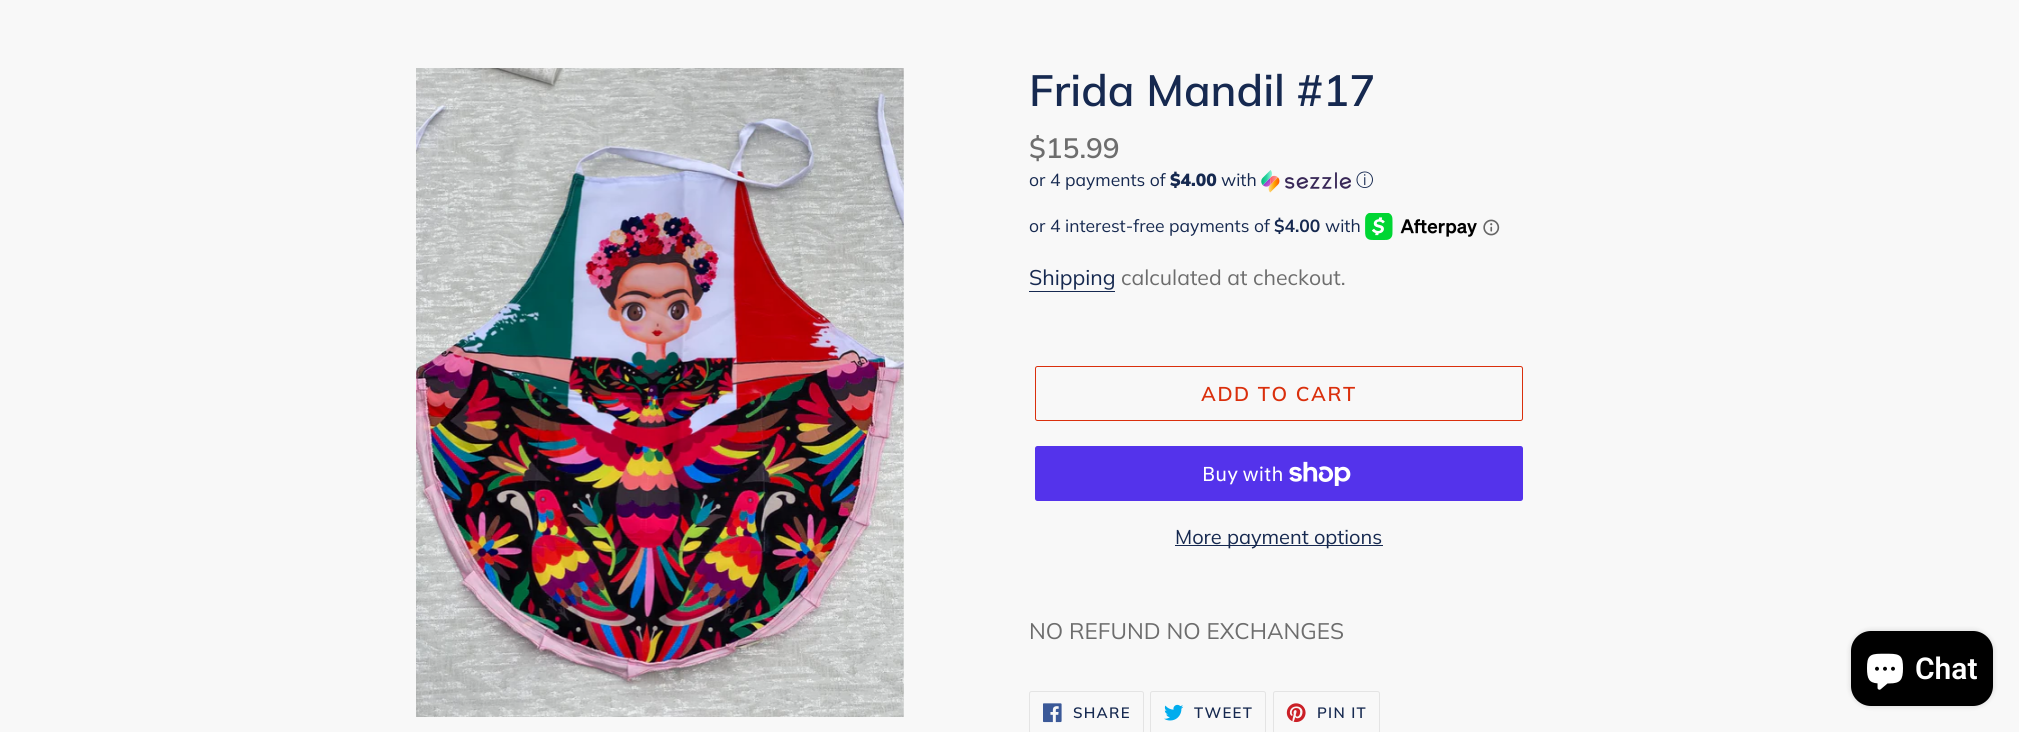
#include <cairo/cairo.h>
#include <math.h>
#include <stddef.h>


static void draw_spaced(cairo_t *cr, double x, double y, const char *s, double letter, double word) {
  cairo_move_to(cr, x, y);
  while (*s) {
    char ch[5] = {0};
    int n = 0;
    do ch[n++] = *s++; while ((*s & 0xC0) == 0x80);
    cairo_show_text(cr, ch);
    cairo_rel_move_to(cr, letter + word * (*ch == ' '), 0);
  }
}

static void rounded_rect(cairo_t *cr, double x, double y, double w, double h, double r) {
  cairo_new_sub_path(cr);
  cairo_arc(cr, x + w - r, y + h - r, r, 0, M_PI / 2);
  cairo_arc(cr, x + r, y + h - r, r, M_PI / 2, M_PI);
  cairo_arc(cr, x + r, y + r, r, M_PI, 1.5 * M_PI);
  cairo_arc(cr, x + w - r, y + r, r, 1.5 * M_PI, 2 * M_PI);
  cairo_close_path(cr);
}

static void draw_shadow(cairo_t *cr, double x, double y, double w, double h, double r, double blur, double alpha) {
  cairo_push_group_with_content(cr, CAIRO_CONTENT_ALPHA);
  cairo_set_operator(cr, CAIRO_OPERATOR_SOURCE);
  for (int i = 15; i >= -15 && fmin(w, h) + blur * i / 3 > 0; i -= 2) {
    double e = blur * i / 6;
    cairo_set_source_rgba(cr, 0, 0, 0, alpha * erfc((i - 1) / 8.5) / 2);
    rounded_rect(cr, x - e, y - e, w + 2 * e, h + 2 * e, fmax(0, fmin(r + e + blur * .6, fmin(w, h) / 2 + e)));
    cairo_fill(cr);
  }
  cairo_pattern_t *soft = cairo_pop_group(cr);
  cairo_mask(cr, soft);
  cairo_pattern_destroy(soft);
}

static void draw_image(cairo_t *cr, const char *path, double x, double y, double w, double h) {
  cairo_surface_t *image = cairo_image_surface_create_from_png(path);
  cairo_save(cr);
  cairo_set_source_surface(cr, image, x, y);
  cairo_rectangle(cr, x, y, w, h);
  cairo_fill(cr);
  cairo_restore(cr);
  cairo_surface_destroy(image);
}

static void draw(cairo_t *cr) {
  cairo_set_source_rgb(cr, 248 / 255.0, 248 / 255.0, 248 / 255.0);
  cairo_paint(cr);
  draw_image(cr, "images/1.png", 416, 68, 488, 649);
  draw_image(cr, "images/2.png", 1261, 170, 90, 23);
  draw_image(cr, "images/3.png", 1365, 213, 112, 27);
  draw_image(cr, "images/4.png", 1483, 219, 17, 17);
  cairo_set_source_rgb(cr, 22 / 255.0, 41 / 255.0, 80 / 255.0);
  cairo_rectangle(cr, 1029, 291, 86, 1);
  cairo_fill(cr);
  rounded_rect(cr, 1035.5, 366.5, 487, 54, 2);
  cairo_set_source_rgb(cr, 218 / 255.0, 47 / 255.0, 12 / 255.0);
  cairo_set_line_width(cr, 1);
  cairo_stroke(cr);
  cairo_set_source_rgb(cr, 84 / 255.0, 51 / 255.0, 235 / 255.0);
  rounded_rect(cr, 1035, 446, 488, 55, 2.5);
  cairo_fill(cr);
  draw_image(cr, "images/5.png", 1289, 461, 62, 25);
  cairo_set_source_rgb(cr, 22 / 255.0, 41 / 255.0, 80 / 255.0);
  cairo_rectangle(cr, 1175, 545, 208, 1);
  cairo_fill(cr);
  rounded_rect(cr, 1029.5, 691.5, 114, 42, 2);
  cairo_set_source_rgb(cr, 228 / 255.0, 228 / 255.0, 228 / 255.0);
  cairo_stroke(cr);
  draw_image(cr, "images/6.png", 1043, 703, 19, 20);
  rounded_rect(cr, 1150.5, 691.5, 115, 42, 2);
  cairo_stroke(cr);
  draw_image(cr, "images/7.png", 1164, 704, 20, 17);
  rounded_rect(cr, 1273.5, 691.5, 106, 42, 2);
  cairo_stroke(cr);
  draw_image(cr, "images/8.png", 1286, 703, 20, 20);
  cairo_set_source_rgb(cr, 0, 0, 0);
  draw_shadow(cr, 1851, 631, 142, 75, 20, 3, 0.15);
  cairo_set_source_rgb(cr, 0, 0, 0);
  rounded_rect(cr, 1851, 631, 142, 75, 20);
  cairo_fill(cr);
  draw_image(cr, "images/9.png", 1867, 653, 36, 37);
  cairo_select_font_face(cr, "Muli SemiBold", CAIRO_FONT_SLANT_NORMAL, CAIRO_FONT_WEIGHT_NORMAL);
  cairo_set_font_size(cr, 43.75);
  cairo_set_source_rgb(cr, 22 / 255.0, 41 / 255.0, 80 / 255.0);
  cairo_move_to(cr, 1029, 106);
  cairo_show_text(cr, "Frida Mandil #17");
  cairo_set_font_size(cr, 28);
  cairo_set_source_rgb(cr, 109 / 255.0, 109 / 255.0, 109 / 255.0);
  cairo_move_to(cr, 1029, 158);
  cairo_show_text(cr, "$15.99");
  cairo_select_font_face(cr, "Muli", CAIRO_FONT_SLANT_NORMAL, CAIRO_FONT_WEIGHT_NORMAL);
  cairo_set_font_size(cr, 17.5);
  cairo_set_source_rgb(cr, 22 / 255.0, 41 / 255.0, 80 / 255.0);
  cairo_move_to(cr, 1029, 186);
  cairo_show_text(cr, "or 4 payments of");
  cairo_select_font_face(cr, "Muli Black", CAIRO_FONT_SLANT_NORMAL, CAIRO_FONT_WEIGHT_NORMAL);
  cairo_move_to(cr, 1170, 186);
  cairo_show_text(cr, "$4.00");
  cairo_select_font_face(cr, "Muli", CAIRO_FONT_SLANT_NORMAL, CAIRO_FONT_WEIGHT_NORMAL);
  cairo_move_to(cr, 1221, 186);
  cairo_show_text(cr, "with");
  cairo_select_font_face(cr, "WenQuanYi Zen Hei Medium", CAIRO_FONT_SLANT_NORMAL, CAIRO_FONT_WEIGHT_NORMAL);
  cairo_move_to(cr, 1356, 186);
  cairo_show_text(cr, "ⓘ");
  cairo_select_font_face(cr, "Muli", CAIRO_FONT_SLANT_NORMAL, CAIRO_FONT_WEIGHT_NORMAL);
  cairo_move_to(cr, 1029, 232);
  cairo_show_text(cr, "or 4 interest-free payments of");
  cairo_select_font_face(cr, "Muli", CAIRO_FONT_SLANT_NORMAL, CAIRO_FONT_WEIGHT_BOLD);
  cairo_move_to(cr, 1274, 232);
  cairo_show_text(cr, "$4.00");
  cairo_select_font_face(cr, "Muli", CAIRO_FONT_SLANT_NORMAL, CAIRO_FONT_WEIGHT_NORMAL);
  cairo_move_to(cr, 1325, 232);
  cairo_show_text(cr, "with");
  cairo_set_font_size(cr, 21.25);
  cairo_move_to(cr, 1029, 285);
  cairo_show_text(cr, "Shipping");
  cairo_set_source_rgb(cr, 109 / 255.0, 109 / 255.0, 109 / 255.0);
  cairo_move_to(cr, 1121, 285);
  cairo_show_text(cr, "calculated at checkout.");
  cairo_select_font_face(cr, "Muli SemiBold", CAIRO_FONT_SLANT_NORMAL, CAIRO_FONT_WEIGHT_NORMAL);
  cairo_set_font_size(cr, 20);
  cairo_set_source_rgb(cr, 218 / 255.0, 47 / 255.0, 12 / 255.0);
  draw_spaced(cr, 1201, 401, "ADD TO CART", 1.6, 0);
  cairo_select_font_face(cr, "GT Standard", CAIRO_FONT_SLANT_NORMAL, CAIRO_FONT_WEIGHT_NORMAL);
  cairo_set_source_rgb(cr, 1, 1, 1);
  cairo_move_to(cr, 1202, 481);
  cairo_show_text(cr, "Buy with");
  cairo_select_font_face(cr, "Muli", CAIRO_FONT_SLANT_NORMAL, CAIRO_FONT_WEIGHT_NORMAL);
  cairo_set_source_rgb(cr, 22 / 255.0, 41 / 255.0, 80 / 255.0);
  cairo_move_to(cr, 1175, 544);
  cairo_show_text(cr, "More payment options");
  cairo_set_font_size(cr, 22.5);
  cairo_set_source_rgb(cr, 109 / 255.0, 109 / 255.0, 109 / 255.0);
  cairo_move_to(cr, 1029, 639);
  cairo_show_text(cr, "NO REFUND NO EXCHANGES");
  cairo_select_font_face(cr, "Muli SemiBold", CAIRO_FONT_SLANT_NORMAL, CAIRO_FONT_WEIGHT_NORMAL);
  cairo_set_font_size(cr, 15);
  cairo_set_source_rgb(cr, 22 / 255.0, 41 / 255.0, 80 / 255.0);
  draw_spaced(cr, 1073, 718, "SHARE", 1.25, 0);
  draw_spaced(cr, 1194, 718, "TWEET", 1.25, 0);
  draw_spaced(cr, 1317, 718, "PIN IT", 1.25, 0);
  cairo_select_font_face(cr, "Roboto SemiBold", CAIRO_FONT_SLANT_NORMAL, CAIRO_FONT_WEIGHT_NORMAL);
  cairo_set_font_size(cr, 30);
  cairo_set_source_rgb(cr, 1, 1, 1);
  cairo_move_to(cr, 1915, 679);
  cairo_show_text(cr, "Chat");
}

int main(void) {
  cairo_surface_t *surface = cairo_image_surface_create(CAIRO_FORMAT_RGB24, 2019, 732);
  cairo_t *cr = cairo_create(surface);
  cairo_font_options_t *options = cairo_font_options_create();
  cairo_font_options_set_hint_metrics(options, CAIRO_HINT_METRICS_OFF);
  cairo_font_options_set_hint_style(options, CAIRO_HINT_STYLE_NONE);
  cairo_set_font_options(cr, options);
  cairo_set_miter_limit(cr, 4);
  draw(cr);
  cairo_surface_write_to_png(surface, "out.png");
  cairo_font_options_destroy(options);
  cairo_destroy(cr);
  cairo_surface_destroy(surface);
  return 0;
}
